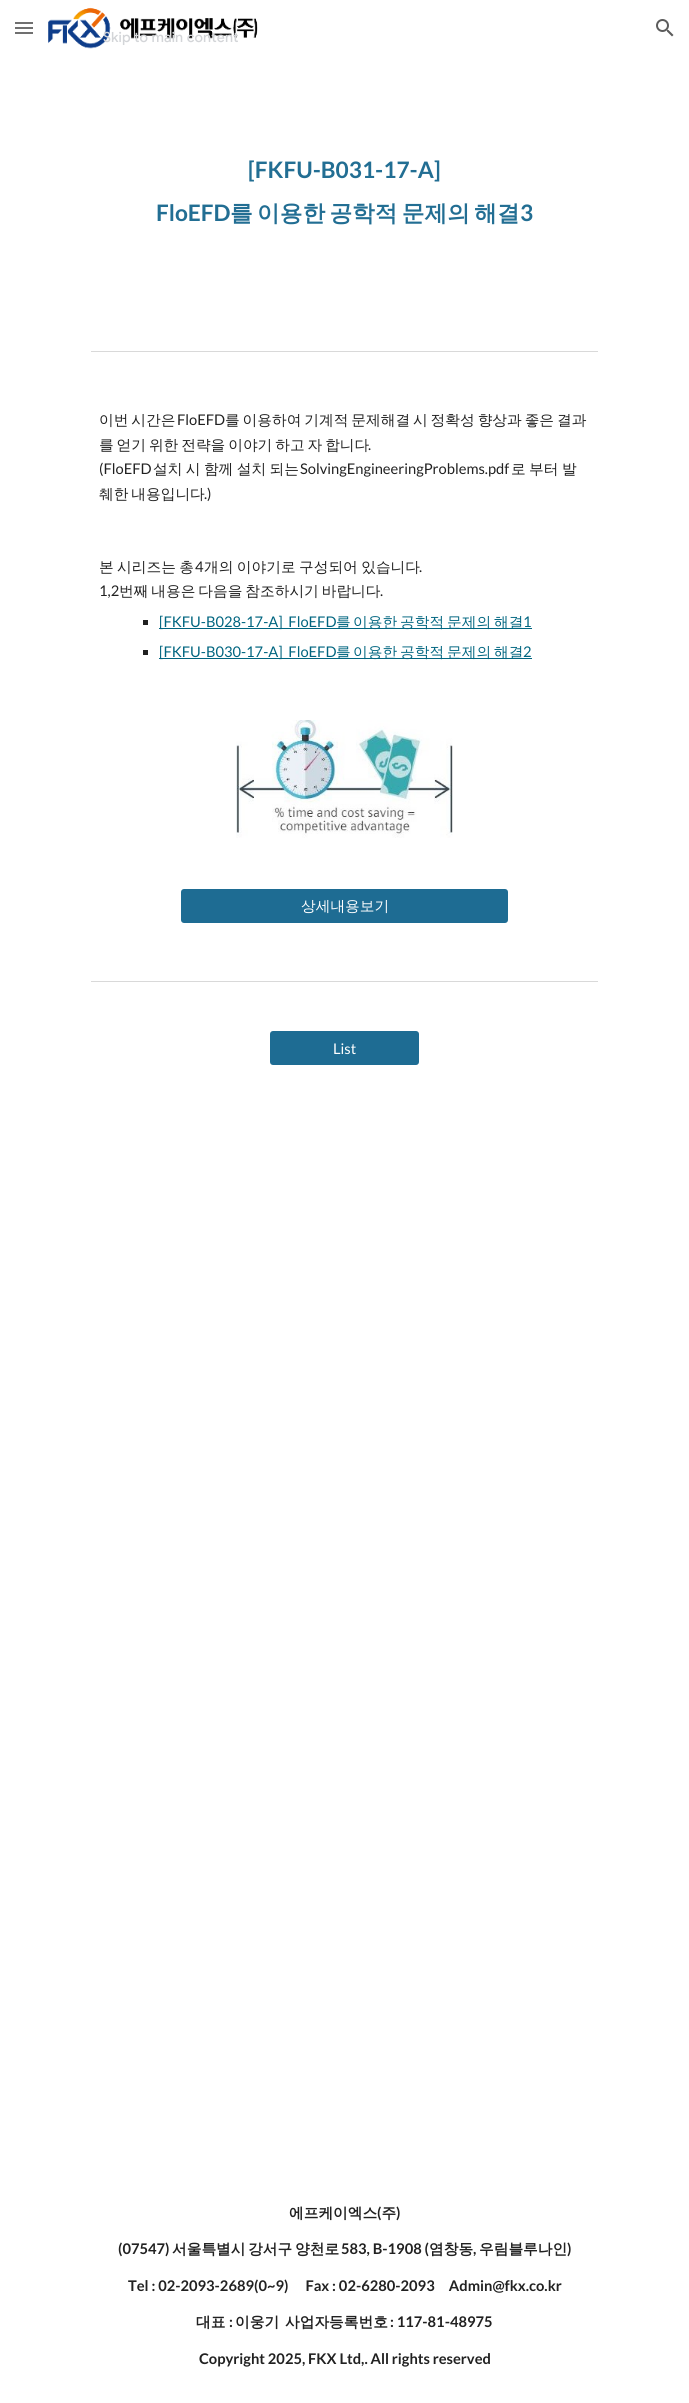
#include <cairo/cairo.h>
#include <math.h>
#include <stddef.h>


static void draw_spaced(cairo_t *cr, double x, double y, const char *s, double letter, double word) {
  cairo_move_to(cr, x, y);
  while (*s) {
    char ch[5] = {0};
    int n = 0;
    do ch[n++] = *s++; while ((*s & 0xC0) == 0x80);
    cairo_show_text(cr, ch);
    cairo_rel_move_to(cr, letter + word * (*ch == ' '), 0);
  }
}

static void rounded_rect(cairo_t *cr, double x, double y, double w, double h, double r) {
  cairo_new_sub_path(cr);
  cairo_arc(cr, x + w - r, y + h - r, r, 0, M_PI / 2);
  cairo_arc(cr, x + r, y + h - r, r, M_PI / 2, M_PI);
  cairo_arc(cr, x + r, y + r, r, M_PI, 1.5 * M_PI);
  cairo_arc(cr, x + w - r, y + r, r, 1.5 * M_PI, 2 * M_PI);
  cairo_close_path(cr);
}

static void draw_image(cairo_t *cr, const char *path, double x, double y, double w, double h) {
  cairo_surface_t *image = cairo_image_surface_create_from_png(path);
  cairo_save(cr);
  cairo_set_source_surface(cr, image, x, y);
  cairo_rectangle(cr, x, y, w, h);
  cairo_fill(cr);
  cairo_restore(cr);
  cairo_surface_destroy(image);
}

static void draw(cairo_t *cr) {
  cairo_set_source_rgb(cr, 1, 1, 1);
  cairo_paint(cr);
  cairo_set_source_rgb(cr, 112 / 255.0, 112 / 255.0, 112 / 255.0);
  cairo_rectangle(cr, 15, 22, 18, 2);
  cairo_fill(cr);
  cairo_rectangle(cr, 15, 27, 18, 2);
  cairo_fill(cr);
  cairo_rectangle(cr, 15, 32, 18, 2);
  cairo_fill(cr);
  draw_image(cr, "images/1.png", 48, 7, 210, 42);
  draw_image(cr, "images/2.png", 656, 19, 18, 18);
  cairo_set_source_rgb(cr, 217 / 255.0, 217 / 255.0, 217 / 255.0);
  cairo_rectangle(cr, 91, 351, 507, 1);
  cairo_fill(cr);
  cairo_set_source_rgb(cr, 33 / 255.0, 33 / 255.0, 33 / 255.0);
  cairo_rectangle(cr, 143, 620, 5, 5);
  cairo_fill(cr);
  cairo_set_source_rgb(cr, 0, 101 / 255.0, 128 / 255.0);
  cairo_rectangle(cr, 159, 628, 373, 1);
  cairo_fill(cr);
  cairo_set_source_rgb(cr, 33 / 255.0, 33 / 255.0, 33 / 255.0);
  cairo_rectangle(cr, 143, 650, 5, 5);
  cairo_fill(cr);
  cairo_set_source_rgb(cr, 0, 101 / 255.0, 128 / 255.0);
  cairo_rectangle(cr, 159, 658, 373, 1);
  cairo_fill(cr);
  draw_image(cr, "images/3.png", 236, 720, 217, 118);
  cairo_set_source_rgb(cr, 30 / 255.0, 108 / 255.0, 147 / 255.0);
  rounded_rect(cr, 181, 889, 327, 34, 3);
  cairo_fill(cr);
  cairo_set_source_rgb(cr, 217 / 255.0, 217 / 255.0, 217 / 255.0);
  cairo_rectangle(cr, 91, 981, 507, 1);
  cairo_fill(cr);
  cairo_set_source_rgb(cr, 30 / 255.0, 108 / 255.0, 147 / 255.0);
  rounded_rect(cr, 270, 1031, 149, 34, 3);
  cairo_fill(cr);
  cairo_select_font_face(cr, "Google Sans Medium", CAIRO_FONT_SLANT_NORMAL, CAIRO_FONT_WEIGHT_NORMAL);
  cairo_set_font_size(cr, 14);
  cairo_set_source_rgb(cr, 211 / 255.0, 213 / 255.0, 216 / 255.0);
  draw_spaced(cr, 103, 42, "Skip to main content", 0.1, 0);
  cairo_select_font_face(cr, "Lato", CAIRO_FONT_SLANT_NORMAL, CAIRO_FONT_WEIGHT_BOLD);
  cairo_set_font_size(cr, 22.7);
  cairo_set_source_rgb(cr, 34 / 255.0, 110 / 255.0, 147 / 255.0);
  cairo_move_to(cr, 248, 178);
  cairo_show_text(cr, "[FKFU-B031-17-A]");
  cairo_move_to(cr, 156, 221);
  cairo_show_text(cr, "FloEFD");
  cairo_select_font_face(cr, "WenQuanYi Zen Hei", CAIRO_FONT_SLANT_NORMAL, CAIRO_FONT_WEIGHT_BOLD);
  draw_spaced(cr, 230, 221, "를 이용한 공학적 문제의 해결", 0, -2.5);
  cairo_select_font_face(cr, "Lato", CAIRO_FONT_SLANT_NORMAL, CAIRO_FONT_WEIGHT_BOLD);
  cairo_move_to(cr, 520, 221);
  cairo_show_text(cr, "3");
  cairo_select_font_face(cr, "WenQuanYi Zen Hei Medium", CAIRO_FONT_SLANT_NORMAL, CAIRO_FONT_WEIGHT_NORMAL);
  cairo_set_font_size(cr, 14.7);
  cairo_set_source_rgb(cr, 33 / 255.0, 33 / 255.0, 33 / 255.0);
  draw_spaced(cr, 99, 425, "이번 시간은", 0, -1.5);
  cairo_select_font_face(cr, "Lato", CAIRO_FONT_SLANT_NORMAL, CAIRO_FONT_WEIGHT_NORMAL);
  cairo_move_to(cr, 177, 425);
  cairo_show_text(cr, "FloEFD");
  cairo_select_font_face(cr, "WenQuanYi Zen Hei Medium", CAIRO_FONT_SLANT_NORMAL, CAIRO_FONT_WEIGHT_NORMAL);
  draw_spaced(cr, 225, 425, "를 이용하여 기계적 문제해결 시 정확성 향상과 좋은 결과", 0, -1.5);
  draw_spaced(cr, 99, 450, "를 얻기 위한 전략을 이야기 하고 자 합니다", 0, -1.5);
  cairo_select_font_face(cr, "Lato", CAIRO_FONT_SLANT_NORMAL, CAIRO_FONT_WEIGHT_NORMAL);
  cairo_move_to(cr, 368, 450);
  cairo_show_text(cr, ".");
  cairo_move_to(cr, 99, 474);
  cairo_show_text(cr, "(FloEFD");
  cairo_select_font_face(cr, "WenQuanYi Zen Hei Medium", CAIRO_FONT_SLANT_NORMAL, CAIRO_FONT_WEIGHT_NORMAL);
  draw_spaced(cr, 153, 474, "설치 시 함께 설치 되는", 0, -1);
  cairo_select_font_face(cr, "Lato", CAIRO_FONT_SLANT_NORMAL, CAIRO_FONT_WEIGHT_NORMAL);
  cairo_move_to(cr, 300, 474);
  cairo_show_text(cr, "SolvingEngineeringProblems.pdf");
  cairo_select_font_face(cr, "WenQuanYi Zen Hei Medium", CAIRO_FONT_SLANT_NORMAL, CAIRO_FONT_WEIGHT_NORMAL);
  draw_spaced(cr, 511, 474, "로 부터 발", 0, -1);
  draw_spaced(cr, 99, 499, "췌한 내용입니다", 0, -1.5);
  cairo_select_font_face(cr, "Lato", CAIRO_FONT_SLANT_NORMAL, CAIRO_FONT_WEIGHT_NORMAL);
  cairo_move_to(cr, 204, 499);
  cairo_show_text(cr, ".)");
  cairo_select_font_face(cr, "WenQuanYi Zen Hei Medium", CAIRO_FONT_SLANT_NORMAL, CAIRO_FONT_WEIGHT_NORMAL);
  draw_spaced(cr, 99, 572, "본 시리즈는 총", 0, -1);
  cairo_select_font_face(cr, "Lato", CAIRO_FONT_SLANT_NORMAL, CAIRO_FONT_WEIGHT_NORMAL);
  cairo_move_to(cr, 195, 572);
  cairo_show_text(cr, "4");
  cairo_select_font_face(cr, "WenQuanYi Zen Hei Medium", CAIRO_FONT_SLANT_NORMAL, CAIRO_FONT_WEIGHT_NORMAL);
  draw_spaced(cr, 204, 572, "개의 이야기로 구성되어 있습니다", 0, -1);
  cairo_select_font_face(cr, "Lato", CAIRO_FONT_SLANT_NORMAL, CAIRO_FONT_WEIGHT_NORMAL);
  cairo_move_to(cr, 419, 572);
  cairo_show_text(cr, ".");
  cairo_move_to(cr, 99, 596);
  cairo_show_text(cr, "1,2");
  cairo_select_font_face(cr, "WenQuanYi Zen Hei Medium", CAIRO_FONT_SLANT_NORMAL, CAIRO_FONT_WEIGHT_NORMAL);
  draw_spaced(cr, 119, 596, "번째 내용은 다음을 참조하시기 바랍니다", 0, -1.5);
  cairo_select_font_face(cr, "Lato", CAIRO_FONT_SLANT_NORMAL, CAIRO_FONT_WEIGHT_NORMAL);
  cairo_move_to(cr, 380, 596);
  cairo_show_text(cr, ".");
  cairo_set_source_rgb(cr, 0, 101 / 255.0, 128 / 255.0);
  cairo_move_to(cr, 159, 627);
  cairo_show_text(cr, "[FKFU-B028-17-A]  FloEFD");
  cairo_select_font_face(cr, "WenQuanYi Zen Hei Medium", CAIRO_FONT_SLANT_NORMAL, CAIRO_FONT_WEIGHT_NORMAL);
  cairo_move_to(cr, 336, 627);
  cairo_show_text(cr, "를");
  cairo_move_to(cr, 353, 627);
  cairo_show_text(cr, "이용한");
  cairo_move_to(cr, 400, 627);
  cairo_show_text(cr, "공학적");
  cairo_move_to(cr, 447, 627);
  cairo_show_text(cr, "문제의");
  cairo_move_to(cr, 494, 627);
  cairo_show_text(cr, "해결");
  cairo_select_font_face(cr, "Lato", CAIRO_FONT_SLANT_NORMAL, CAIRO_FONT_WEIGHT_NORMAL);
  cairo_move_to(cr, 523, 627);
  cairo_show_text(cr, "1");
  cairo_move_to(cr, 159, 657);
  cairo_show_text(cr, "[FKFU-B030-17-A]  FloEFD");
  cairo_select_font_face(cr, "WenQuanYi Zen Hei Medium", CAIRO_FONT_SLANT_NORMAL, CAIRO_FONT_WEIGHT_NORMAL);
  cairo_move_to(cr, 336, 657);
  cairo_show_text(cr, "를");
  cairo_move_to(cr, 353, 657);
  cairo_show_text(cr, "이용한");
  cairo_move_to(cr, 400, 657);
  cairo_show_text(cr, "공학적");
  cairo_move_to(cr, 447, 657);
  cairo_show_text(cr, "문제의");
  cairo_move_to(cr, 494, 657);
  cairo_show_text(cr, "해결");
  cairo_select_font_face(cr, "Lato", CAIRO_FONT_SLANT_NORMAL, CAIRO_FONT_WEIGHT_NORMAL);
  cairo_move_to(cr, 523, 657);
  cairo_show_text(cr, "2");
  cairo_select_font_face(cr, "WenQuanYi Zen Hei Medium", CAIRO_FONT_SLANT_NORMAL, CAIRO_FONT_WEIGHT_NORMAL);
  cairo_set_source_rgb(cr, 1, 1, 1);
  cairo_move_to(cr, 301, 911);
  cairo_show_text(cr, "상세내용보기");
  cairo_select_font_face(cr, "Lato", CAIRO_FONT_SLANT_NORMAL, CAIRO_FONT_WEIGHT_NORMAL);
  cairo_move_to(cr, 333, 1054);
  cairo_show_text(cr, "List");
  cairo_select_font_face(cr, "Lato", CAIRO_FONT_SLANT_NORMAL, CAIRO_FONT_WEIGHT_BOLD);
  cairo_set_source_rgb(cr, 33 / 255.0, 33 / 255.0, 33 / 255.0);
  cairo_move_to(cr, 396, 2218);
  cairo_show_text(cr, ")");
  cairo_select_font_face(cr, "WenQuanYi Zen Hei", CAIRO_FONT_SLANT_NORMAL, CAIRO_FONT_WEIGHT_BOLD);
  cairo_move_to(cr, 289, 2218);
  cairo_show_text(cr, "에프케이엑스 주");
  cairo_select_font_face(cr, "Lato", CAIRO_FONT_SLANT_NORMAL, CAIRO_FONT_WEIGHT_BOLD);
  cairo_move_to(cr, 377, 2218);
  cairo_show_text(cr, "(");
  cairo_move_to(cr, 118, 2254);
  cairo_show_text(cr, "(07547)");
  cairo_select_font_face(cr, "WenQuanYi Zen Hei", CAIRO_FONT_SLANT_NORMAL, CAIRO_FONT_WEIGHT_BOLD);
  cairo_move_to(cr, 172, 2254);
  cairo_show_text(cr, "서울특별시");
  cairo_move_to(cr, 248, 2254);
  cairo_show_text(cr, "강서구");
  cairo_move_to(cr, 295, 2254);
  cairo_show_text(cr, "양천로");
  cairo_select_font_face(cr, "Lato", CAIRO_FONT_SLANT_NORMAL, CAIRO_FONT_WEIGHT_BOLD);
  cairo_move_to(cr, 341, 2254);
  cairo_show_text(cr, "583, B-1908 (");
  cairo_select_font_face(cr, "WenQuanYi Zen Hei", CAIRO_FONT_SLANT_NORMAL, CAIRO_FONT_WEIGHT_BOLD);
  cairo_move_to(cr, 429, 2254);
  cairo_show_text(cr, "염창동");
  cairo_select_font_face(cr, "Lato", CAIRO_FONT_SLANT_NORMAL, CAIRO_FONT_WEIGHT_BOLD);
  cairo_move_to(cr, 473, 2254);
  cairo_show_text(cr, ",");
  cairo_select_font_face(cr, "WenQuanYi Zen Hei", CAIRO_FONT_SLANT_NORMAL, CAIRO_FONT_WEIGHT_BOLD);
  cairo_move_to(cr, 479, 2254);
  cairo_show_text(cr, "우림블루나인");
  cairo_select_font_face(cr, "Lato", CAIRO_FONT_SLANT_NORMAL, CAIRO_FONT_WEIGHT_BOLD);
  cairo_move_to(cr, 567, 2254);
  cairo_show_text(cr, ")");
  cairo_move_to(cr, 128, 2291);
  cairo_show_text(cr, "Tel : 02-2093-2689(0~9)      Fax : 02-6280-2093     Admin@fkx.co.kr");
  cairo_select_font_face(cr, "WenQuanYi Zen Hei", CAIRO_FONT_SLANT_NORMAL, CAIRO_FONT_WEIGHT_BOLD);
  cairo_move_to(cr, 196, 2327);
  cairo_show_text(cr, "대표");
  cairo_select_font_face(cr, "Lato", CAIRO_FONT_SLANT_NORMAL, CAIRO_FONT_WEIGHT_BOLD);
  cairo_move_to(cr, 229, 2327);
  cairo_show_text(cr, ":");
  cairo_select_font_face(cr, "WenQuanYi Zen Hei", CAIRO_FONT_SLANT_NORMAL, CAIRO_FONT_WEIGHT_BOLD);
  cairo_move_to(cr, 235, 2327);
  cairo_show_text(cr, "이웅기");
  cairo_move_to(cr, 285, 2327);
  cairo_show_text(cr, "사업자등록번호");
  cairo_select_font_face(cr, "Lato", CAIRO_FONT_SLANT_NORMAL, CAIRO_FONT_WEIGHT_BOLD);
  cairo_move_to(cr, 390, 2327);
  cairo_show_text(cr, ": 117-81-48975");
  cairo_move_to(cr, 199, 2364);
  cairo_show_text(cr, "Copyright 2025, FKX Ltd,. All rights reserved");
}

int main(void) {
  cairo_surface_t *surface = cairo_image_surface_create(CAIRO_FORMAT_RGB24, 689, 2403);
  cairo_t *cr = cairo_create(surface);
  cairo_font_options_t *options = cairo_font_options_create();
  cairo_font_options_set_hint_metrics(options, CAIRO_HINT_METRICS_OFF);
  cairo_font_options_set_hint_style(options, CAIRO_HINT_STYLE_NONE);
  cairo_set_font_options(cr, options);
  cairo_set_miter_limit(cr, 4);
  draw(cr);
  cairo_surface_write_to_png(surface, "out.png");
  cairo_font_options_destroy(options);
  cairo_destroy(cr);
  cairo_surface_destroy(surface);
  return 0;
}
